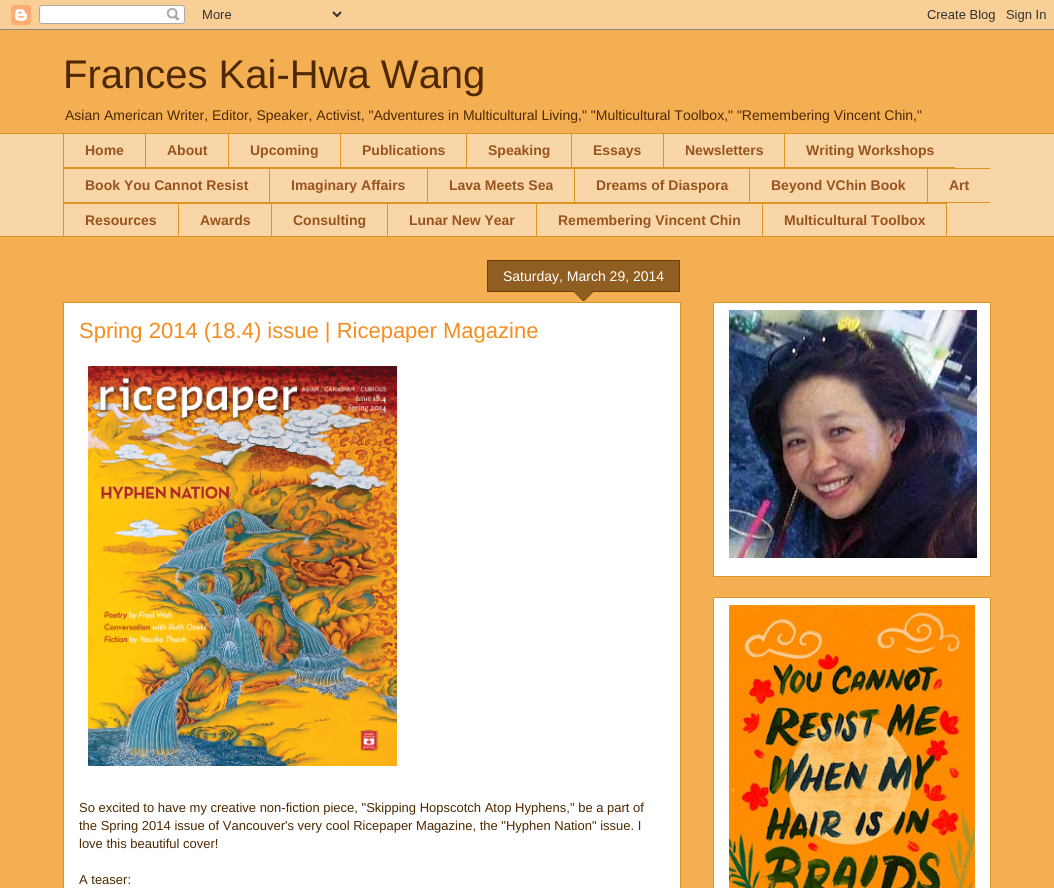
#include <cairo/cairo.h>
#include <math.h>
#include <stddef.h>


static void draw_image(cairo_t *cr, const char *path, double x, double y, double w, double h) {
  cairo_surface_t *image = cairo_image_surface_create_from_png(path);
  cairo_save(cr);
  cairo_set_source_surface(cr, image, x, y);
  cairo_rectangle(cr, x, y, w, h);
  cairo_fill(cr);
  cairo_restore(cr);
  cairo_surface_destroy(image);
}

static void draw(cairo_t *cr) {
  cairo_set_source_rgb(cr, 244 / 255.0, 175 / 255.0, 82 / 255.0);
  cairo_paint(cr);
  draw_image(cr, "images/1.png", 0, 0, 1054, 30);
  cairo_set_source_rgb(cr, 249 / 255.0, 214 / 255.0, 167 / 255.0);
  cairo_rectangle(cr, 0, 134, 1054, 102);
  cairo_fill(cr);
  cairo_set_source_rgb(cr, 220 / 255.0, 149 / 255.0, 34 / 255.0);
  cairo_rectangle(cr, 0, 133, 1054, 1);
  cairo_fill(cr);
  cairo_rectangle(cr, 63, 167, 892, 1);
  cairo_fill(cr);
  cairo_rectangle(cr, 63, 133, 1, 35);
  cairo_fill(cr);
  cairo_rectangle(cr, 145, 133, 1, 35);
  cairo_fill(cr);
  cairo_rectangle(cr, 228, 133, 1, 35);
  cairo_fill(cr);
  cairo_rectangle(cr, 340, 133, 1, 35);
  cairo_fill(cr);
  cairo_rectangle(cr, 466, 133, 1, 35);
  cairo_fill(cr);
  cairo_rectangle(cr, 571, 133, 1, 35);
  cairo_fill(cr);
  cairo_rectangle(cr, 663, 133, 1, 35);
  cairo_fill(cr);
  cairo_rectangle(cr, 784, 133, 1, 35);
  cairo_fill(cr);
  cairo_rectangle(cr, 63, 168, 927, 1);
  cairo_fill(cr);
  cairo_rectangle(cr, 63, 202, 927, 1);
  cairo_fill(cr);
  cairo_rectangle(cr, 63, 168, 1, 35);
  cairo_fill(cr);
  cairo_rectangle(cr, 269, 168, 1, 35);
  cairo_fill(cr);
  cairo_rectangle(cr, 427, 168, 1, 35);
  cairo_fill(cr);
  cairo_rectangle(cr, 574, 168, 1, 35);
  cairo_fill(cr);
  cairo_rectangle(cr, 749, 168, 1, 35);
  cairo_fill(cr);
  cairo_rectangle(cr, 927, 168, 1, 35);
  cairo_fill(cr);
  cairo_rectangle(cr, 63, 203, 699, 1);
  cairo_fill(cr);
  cairo_rectangle(cr, 63, 203, 1, 34);
  cairo_fill(cr);
  cairo_rectangle(cr, 178, 203, 1, 34);
  cairo_fill(cr);
  cairo_rectangle(cr, 271, 203, 1, 34);
  cairo_fill(cr);
  cairo_rectangle(cr, 387, 203, 1, 34);
  cairo_fill(cr);
  cairo_rectangle(cr, 536, 203, 1, 34);
  cairo_fill(cr);
  cairo_rectangle(cr, 762.5, 203.5, 184, 33);
  cairo_set_line_width(cr, 1);
  cairo_stroke(cr);
  cairo_rectangle(cr, 0, 236, 1054, 1);
  cairo_fill(cr);
  cairo_set_source_rgb(cr, 1, 1, 1);
  cairo_rectangle(cr, 63.5, 302.5, 617, 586);
  cairo_fill_preserve(cr);
  cairo_set_source_rgb(cr, 220 / 255.0, 149 / 255.0, 34 / 255.0);
  cairo_stroke(cr);
  draw_image(cr, "images/2.png", 487, 261, 193, 40);
  cairo_set_source_rgb(cr, 102 / 255.0, 68 / 255.0, 0);
  cairo_rectangle(cr, 487, 260, 193, 1);
  cairo_fill(cr);
  cairo_rectangle(cr, 679, 261, 1, 30);
  cairo_fill(cr);
  cairo_rectangle(cr, 487, 261, 1, 30);
  cairo_fill(cr);
  draw_image(cr, "images/3.png", 88, 366, 309, 400);
  cairo_set_source_rgb(cr, 1, 1, 1);
  cairo_rectangle(cr, 713.5, 302.5, 277, 274);
  cairo_fill_preserve(cr);
  cairo_set_source_rgb(cr, 220 / 255.0, 149 / 255.0, 34 / 255.0);
  cairo_stroke(cr);
  draw_image(cr, "images/4.png", 729, 310, 248, 248);
  cairo_set_source_rgb(cr, 1, 1, 1);
  cairo_rectangle(cr, 713.5, 597.5, 277, 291);
  cairo_fill_preserve(cr);
  cairo_set_source_rgb(cr, 220 / 255.0, 149 / 255.0, 34 / 255.0);
  cairo_stroke(cr);
  draw_image(cr, "images/5.png", 729, 605, 246, 283);
  cairo_select_font_face(cr, "Liberation Sans", CAIRO_FONT_SLANT_NORMAL, CAIRO_FONT_WEIGHT_NORMAL);
  cairo_set_font_size(cr, 40);
  cairo_set_source_rgb(cr, 78 / 255.0, 40 / 255.0, 0);
  cairo_move_to(cr, 63, 88);
  cairo_show_text(cr, "Frances Kai-Hwa Wang");
  cairo_set_font_size(cr, 14);
  cairo_move_to(cr, 65, 120);
  cairo_show_text(cr, "Asian American Writer, Editor, Speaker, Activist, \"Adventures in Multicultural Living,\" \"Multicultural Toolbox,\" \"Remembering Vincent Chin,\"");
  cairo_select_font_face(cr, "Liberation Sans", CAIRO_FONT_SLANT_NORMAL, CAIRO_FONT_WEIGHT_BOLD);
  cairo_set_source_rgb(cr, 153 / 255.0, 83 / 255.0, 30 / 255.0);
  cairo_move_to(cr, 85, 155);
  cairo_show_text(cr, "Home");
  cairo_move_to(cr, 167, 155);
  cairo_show_text(cr, "About");
  cairo_move_to(cr, 250, 155);
  cairo_show_text(cr, "Upcoming");
  cairo_move_to(cr, 362, 155);
  cairo_show_text(cr, "Publications");
  cairo_move_to(cr, 488, 155);
  cairo_show_text(cr, "Speaking");
  cairo_move_to(cr, 593, 155);
  cairo_show_text(cr, "Essays");
  cairo_move_to(cr, 685, 155);
  cairo_show_text(cr, "Newsletters");
  cairo_move_to(cr, 806, 155);
  cairo_show_text(cr, "Writing Workshops");
  cairo_move_to(cr, 85, 190);
  cairo_show_text(cr, "Book You Cannot Resist");
  cairo_move_to(cr, 291, 190);
  cairo_show_text(cr, "Imaginary Affairs");
  cairo_move_to(cr, 449, 190);
  cairo_show_text(cr, "Lava Meets Sea");
  cairo_move_to(cr, 596, 190);
  cairo_show_text(cr, "Dreams of Diaspora");
  cairo_move_to(cr, 771, 190);
  cairo_show_text(cr, "Beyond VChin Book");
  cairo_move_to(cr, 949, 190);
  cairo_show_text(cr, "Art");
  cairo_move_to(cr, 85, 225);
  cairo_show_text(cr, "Resources");
  cairo_move_to(cr, 200, 225);
  cairo_show_text(cr, "Awards");
  cairo_move_to(cr, 293, 225);
  cairo_show_text(cr, "Consulting");
  cairo_move_to(cr, 409, 225);
  cairo_show_text(cr, "Lunar New Year");
  cairo_move_to(cr, 558, 225);
  cairo_show_text(cr, "Remembering Vincent Chin");
  cairo_move_to(cr, 784, 225);
  cairo_show_text(cr, "Multicultural Toolbox");
  cairo_select_font_face(cr, "Liberation Sans", CAIRO_FONT_SLANT_NORMAL, CAIRO_FONT_WEIGHT_NORMAL);
  cairo_set_source_rgb(cr, 1, 1, 1);
  cairo_move_to(cr, 503, 281);
  cairo_show_text(cr, "Saturday, March 29, 2014");
  cairo_set_font_size(cr, 22);
  cairo_set_source_rgb(cr, 244 / 255.0, 141 / 255.0, 29 / 255.0);
  cairo_move_to(cr, 79, 338);
  cairo_show_text(cr, "Spring 2014 (18.4) issue | Ricepaper Magazine");
  cairo_set_font_size(cr, 13);
  cairo_set_source_rgb(cr, 78 / 255.0, 40 / 255.0, 0);
  cairo_move_to(cr, 79, 812);
  cairo_show_text(cr, "So excited to have my creative non-fiction piece, \"Skipping Hopscotch Atop Hyphens,\" be a part of");
  cairo_move_to(cr, 79, 830);
  cairo_show_text(cr, "the Spring 2014 issue of Vancouver's very cool Ricepaper Magazine, the \"Hyphen Nation\" issue. I");
  cairo_move_to(cr, 79, 848);
  cairo_show_text(cr, "love this beautiful cover!");
  cairo_move_to(cr, 79, 884);
  cairo_show_text(cr, "A teaser:");
}

int main(void) {
  cairo_surface_t *surface = cairo_image_surface_create(CAIRO_FORMAT_RGB24, 1054, 888);
  cairo_t *cr = cairo_create(surface);
  cairo_font_options_t *options = cairo_font_options_create();
  cairo_font_options_set_hint_metrics(options, CAIRO_HINT_METRICS_OFF);
  cairo_font_options_set_hint_style(options, CAIRO_HINT_STYLE_NONE);
  cairo_set_font_options(cr, options);
  cairo_set_miter_limit(cr, 4);
  draw(cr);
  cairo_surface_write_to_png(surface, "out.png");
  cairo_font_options_destroy(options);
  cairo_destroy(cr);
  cairo_surface_destroy(surface);
  return 0;
}
